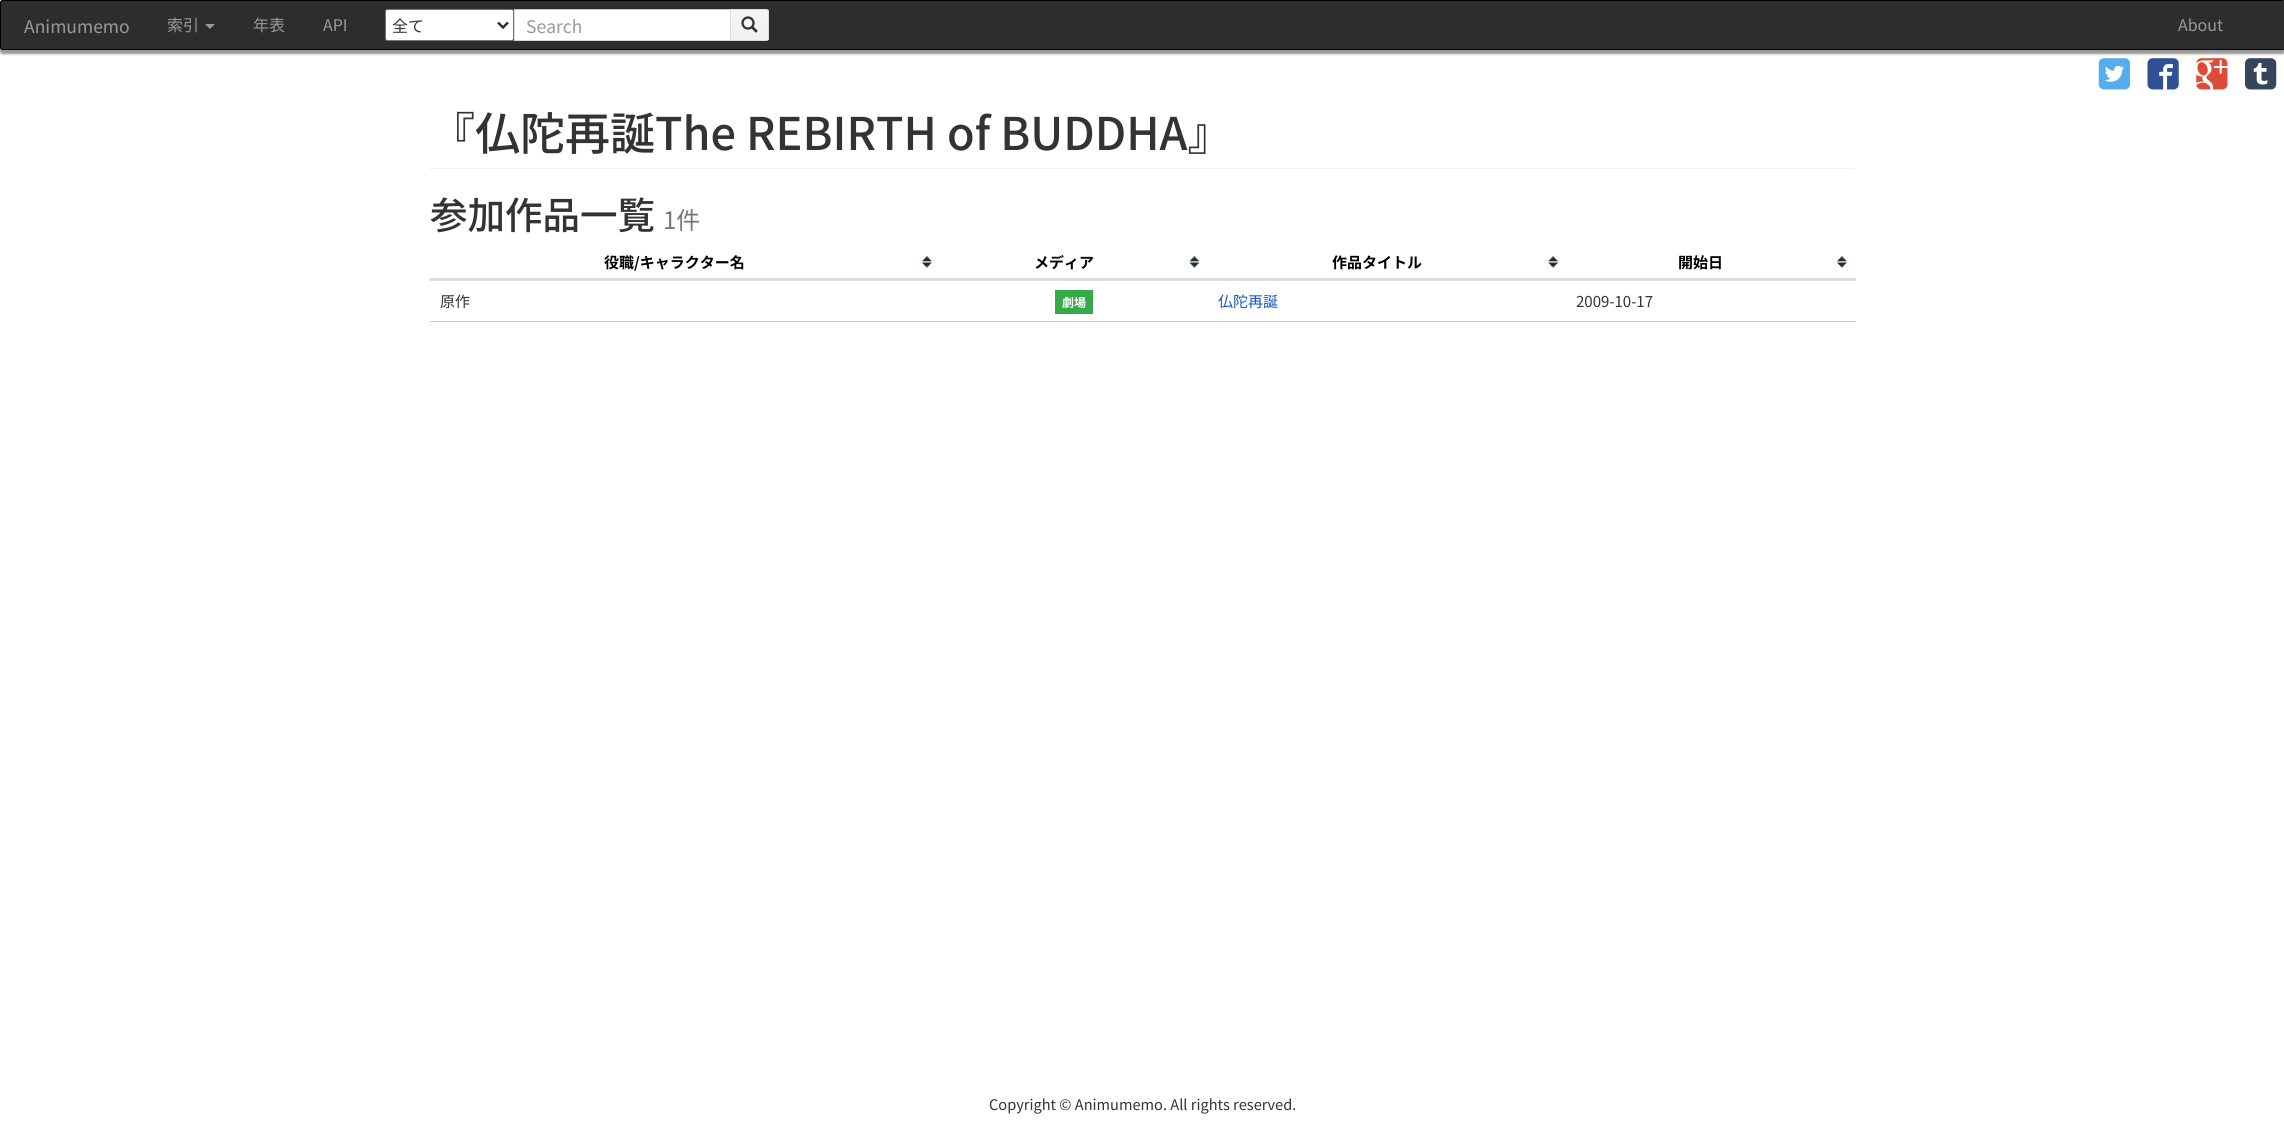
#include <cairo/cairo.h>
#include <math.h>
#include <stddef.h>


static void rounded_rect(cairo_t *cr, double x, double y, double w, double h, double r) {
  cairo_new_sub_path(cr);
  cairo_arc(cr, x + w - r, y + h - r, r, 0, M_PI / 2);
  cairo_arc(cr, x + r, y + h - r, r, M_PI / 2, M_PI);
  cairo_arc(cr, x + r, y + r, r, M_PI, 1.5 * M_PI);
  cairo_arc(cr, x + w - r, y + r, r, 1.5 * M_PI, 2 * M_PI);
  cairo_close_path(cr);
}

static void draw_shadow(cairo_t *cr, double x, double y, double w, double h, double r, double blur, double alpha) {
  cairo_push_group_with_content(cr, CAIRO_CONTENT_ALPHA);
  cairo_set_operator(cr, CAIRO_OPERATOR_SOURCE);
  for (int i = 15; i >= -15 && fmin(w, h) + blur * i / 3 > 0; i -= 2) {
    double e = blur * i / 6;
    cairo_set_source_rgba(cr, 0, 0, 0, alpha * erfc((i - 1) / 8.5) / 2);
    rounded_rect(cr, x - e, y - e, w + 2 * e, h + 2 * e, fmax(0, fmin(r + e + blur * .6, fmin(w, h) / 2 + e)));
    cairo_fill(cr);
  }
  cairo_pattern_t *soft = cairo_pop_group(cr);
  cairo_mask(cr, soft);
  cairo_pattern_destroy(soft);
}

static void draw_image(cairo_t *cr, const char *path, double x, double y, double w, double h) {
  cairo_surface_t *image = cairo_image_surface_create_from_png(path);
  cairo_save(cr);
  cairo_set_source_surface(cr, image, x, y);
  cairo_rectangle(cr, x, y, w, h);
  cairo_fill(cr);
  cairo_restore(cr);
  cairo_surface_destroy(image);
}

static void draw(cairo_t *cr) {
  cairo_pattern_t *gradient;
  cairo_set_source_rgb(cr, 1, 1, 1);
  cairo_paint(cr);
  cairo_set_source_rgb(cr, 50 / 255.0, 50 / 255.0, 50 / 255.0);
  draw_shadow(cr, 0, 4, 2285, 50, 2.5, 1, 0.5);
  cairo_set_source_rgb(cr, 45 / 255.0, 45 / 255.0, 45 / 255.0);
  rounded_rect(cr, 0.5, 0.5, 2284, 49, 2);
  cairo_fill_preserve(cr);
  cairo_set_source_rgb(cr, 0, 0, 0);
  cairo_set_line_width(cr, 1);
  cairo_stroke(cr);
  cairo_set_source_rgb(cr, 153 / 255.0, 153 / 255.0, 153 / 255.0);
  cairo_new_path(cr);
  cairo_move_to(cr, 205, 24);
  cairo_line_to(cr, 215, 24);
  cairo_line_to(cr, 210, 29);
  cairo_close_path(cr);
  cairo_fill(cr);
  cairo_set_source_rgb(cr, 1, 1, 1);
  rounded_rect(cr, 385.5, 9.5, 128, 31, 2);
  cairo_fill_preserve(cr);
  cairo_set_source_rgb(cr, 118 / 255.0, 118 / 255.0, 118 / 255.0);
  cairo_stroke(cr);
  cairo_new_path(cr);
  cairo_move_to(cr, 498, 22.5);
  cairo_line_to(cr, 503, 27.5);
  cairo_line_to(cr, 508, 22.5);
  cairo_set_source_rgb(cr, 51 / 255.0, 51 / 255.0, 51 / 255.0);
  cairo_set_line_width(cr, 2.5);
  cairo_stroke(cr);
  cairo_set_source_rgb(cr, 1, 1, 1);
  cairo_rectangle(cr, 515, 10, 215, 30);
  cairo_fill(cr);
  cairo_set_source_rgb(cr, 192 / 255.0, 192 / 255.0, 192 / 255.0);
  cairo_rectangle(cr, 514, 9, 217, 1);
  cairo_fill(cr);
  cairo_set_source_rgb(cr, 217 / 255.0, 217 / 255.0, 217 / 255.0);
  cairo_rectangle(cr, 514, 40, 217, 1);
  cairo_fill(cr);
  cairo_rectangle(cr, 514, 9, 1, 32);
  cairo_fill(cr);
  gradient = cairo_pattern_create_linear(749, 10, 749, 40);
  cairo_pattern_add_color_stop_rgba(gradient, 0, 245 / 255.0, 245 / 255.0, 245 / 255.0, 1);
  cairo_pattern_add_color_stop_rgba(gradient, 1, 241 / 255.0, 241 / 255.0, 241 / 255.0, 1);
  cairo_set_source(cr, gradient);
  cairo_pattern_destroy(gradient);
  cairo_rectangle(cr, 731, 10, 38, 30);
  cairo_fill(cr);
  cairo_new_path(cr);
  cairo_move_to(cr, 730.5, 9.5);
  cairo_line_to(cr, 766.5, 9.5);
  cairo_curve_to(cr, 767.5, 9.5, 768.5, 10.5, 768.5, 11.5);
  cairo_line_to(cr, 768.5, 38.5);
  cairo_curve_to(cr, 768.5, 39.5, 767.5, 40.5, 766.5, 40.5);
  cairo_line_to(cr, 730.5, 40.5);
  cairo_close_path(cr);
  cairo_set_source_rgb(cr, 220 / 255.0, 220 / 255.0, 220 / 255.0);
  cairo_set_line_width(cr, 1);
  cairo_stroke(cr);
  draw_image(cr, "images/1.png", 741, 16, 17, 17);
  draw_image(cr, "images/2.png", 2098, 58, 32, 32);
  draw_image(cr, "images/3.png", 2147, 58, 32, 32);
  draw_image(cr, "images/4.png", 2196, 58, 32, 32);
  draw_image(cr, "images/5.png", 2245, 58, 32, 32);
  cairo_set_source_rgb(cr, 238 / 255.0, 238 / 255.0, 238 / 255.0);
  cairo_rectangle(cr, 430, 168, 1425, 1);
  cairo_fill(cr);
  draw_image(cr, "images/6.png", 922, 256, 10, 12);
  draw_image(cr, "images/7.png", 1189, 256, 10, 12);
  draw_image(cr, "images/8.png", 1548, 256, 10, 12);
  draw_image(cr, "images/6.png", 1837, 256, 10, 12);
  cairo_set_source_rgb(cr, 221 / 255.0, 221 / 255.0, 221 / 255.0);
  cairo_rectangle(cr, 429, 278, 1427, 3);
  cairo_fill(cr);
  cairo_set_source_rgb(cr, 53 / 255.0, 170 / 255.0, 71 / 255.0);
  cairo_rectangle(cr, 1055, 290, 38, 24);
  cairo_fill(cr);
  cairo_set_source_rgb(cr, 204 / 255.0, 204 / 255.0, 204 / 255.0);
  cairo_rectangle(cr, 430, 321, 1426, 1);
  cairo_fill(cr);
  cairo_select_font_face(cr, "Noto Sans JP", CAIRO_FONT_SLANT_NORMAL, CAIRO_FONT_WEIGHT_NORMAL);
  cairo_set_font_size(cr, 17.5);
  cairo_set_source_rgb(cr, 153 / 255.0, 153 / 255.0, 153 / 255.0);
  cairo_move_to(cr, 24, 33);
  cairo_show_text(cr, "Animumemo");
  cairo_set_font_size(cr, 16);
  cairo_move_to(cr, 167, 31);
  cairo_show_text(cr, "索引");
  cairo_move_to(cr, 253, 31);
  cairo_show_text(cr, "年表");
  cairo_move_to(cr, 323, 31);
  cairo_show_text(cr, "API");
  cairo_set_source_rgb(cr, 51 / 255.0, 51 / 255.0, 51 / 255.0);
  cairo_move_to(cr, 392, 32);
  cairo_show_text(cr, "全て");
  cairo_set_font_size(cr, 17.5);
  cairo_set_source_rgb(cr, 153 / 255.0, 153 / 255.0, 153 / 255.0);
  cairo_move_to(cr, 526, 33);
  cairo_show_text(cr, "Search");
  cairo_set_font_size(cr, 16);
  cairo_move_to(cr, 2178, 31);
  cairo_show_text(cr, "About");
  cairo_select_font_face(cr, "Noto Sans JP Medium", CAIRO_FONT_SLANT_NORMAL, CAIRO_FONT_WEIGHT_NORMAL);
  cairo_set_font_size(cr, 45);
  cairo_set_source_rgb(cr, 51 / 255.0, 51 / 255.0, 51 / 255.0);
  cairo_move_to(cr, 430, 150);
  cairo_show_text(cr, "『仏陀再誕The REBIRTH of BUDDHA』");
  cairo_set_font_size(cr, 37.5);
  cairo_move_to(cr, 430, 229);
  cairo_show_text(cr, "参加作品一覧");
  cairo_select_font_face(cr, "Noto Sans JP", CAIRO_FONT_SLANT_NORMAL, CAIRO_FONT_WEIGHT_NORMAL);
  cairo_set_font_size(cr, 24);
  cairo_set_source_rgb(cr, 119 / 255.0, 119 / 255.0, 119 / 255.0);
  cairo_move_to(cr, 663, 229);
  cairo_show_text(cr, "1件");
  cairo_select_font_face(cr, "Noto Sans JP", CAIRO_FONT_SLANT_NORMAL, CAIRO_FONT_WEIGHT_BOLD);
  cairo_set_font_size(cr, 15);
  cairo_set_source_rgb(cr, 0, 0, 0);
  cairo_move_to(cr, 604, 268);
  cairo_show_text(cr, "役職/キャラクター名");
  cairo_move_to(cr, 1034, 268);
  cairo_show_text(cr, "メディア");
  cairo_move_to(cr, 1332, 268);
  cairo_show_text(cr, "作品タイトル");
  cairo_move_to(cr, 1678, 268);
  cairo_show_text(cr, "開始日");
  cairo_select_font_face(cr, "Noto Sans JP", CAIRO_FONT_SLANT_NORMAL, CAIRO_FONT_WEIGHT_NORMAL);
  cairo_set_source_rgb(cr, 51 / 255.0, 51 / 255.0, 51 / 255.0);
  cairo_move_to(cr, 440, 307);
  cairo_show_text(cr, "原作");
  cairo_select_font_face(cr, "Noto Sans JP", CAIRO_FONT_SLANT_NORMAL, CAIRO_FONT_WEIGHT_BOLD);
  cairo_set_font_size(cr, 12);
  cairo_set_source_rgb(cr, 1, 1, 1);
  cairo_move_to(cr, 1062, 307);
  cairo_show_text(cr, "劇場");
  cairo_select_font_face(cr, "Noto Sans JP", CAIRO_FONT_SLANT_NORMAL, CAIRO_FONT_WEIGHT_NORMAL);
  cairo_set_font_size(cr, 15);
  cairo_set_source_rgb(cr, 17 / 255.0, 85 / 255.0, 204 / 255.0);
  cairo_move_to(cr, 1218, 307);
  cairo_show_text(cr, "仏陀再誕");
  cairo_set_source_rgb(cr, 51 / 255.0, 51 / 255.0, 51 / 255.0);
  cairo_move_to(cr, 1576, 307);
  cairo_show_text(cr, "2009-10-17");
  cairo_set_font_size(cr, 14.6);
  cairo_move_to(cr, 989, 1110);
  cairo_show_text(cr, "Copyright © Animumemo. All rights reserved.");
}

int main(void) {
  cairo_surface_t *surface = cairo_image_surface_create(CAIRO_FORMAT_RGB24, 2284, 1126);
  cairo_t *cr = cairo_create(surface);
  cairo_font_options_t *options = cairo_font_options_create();
  cairo_font_options_set_hint_metrics(options, CAIRO_HINT_METRICS_OFF);
  cairo_font_options_set_hint_style(options, CAIRO_HINT_STYLE_NONE);
  cairo_set_font_options(cr, options);
  cairo_set_miter_limit(cr, 4);
  draw(cr);
  cairo_surface_write_to_png(surface, "out.png");
  cairo_font_options_destroy(options);
  cairo_destroy(cr);
  cairo_surface_destroy(surface);
  return 0;
}
